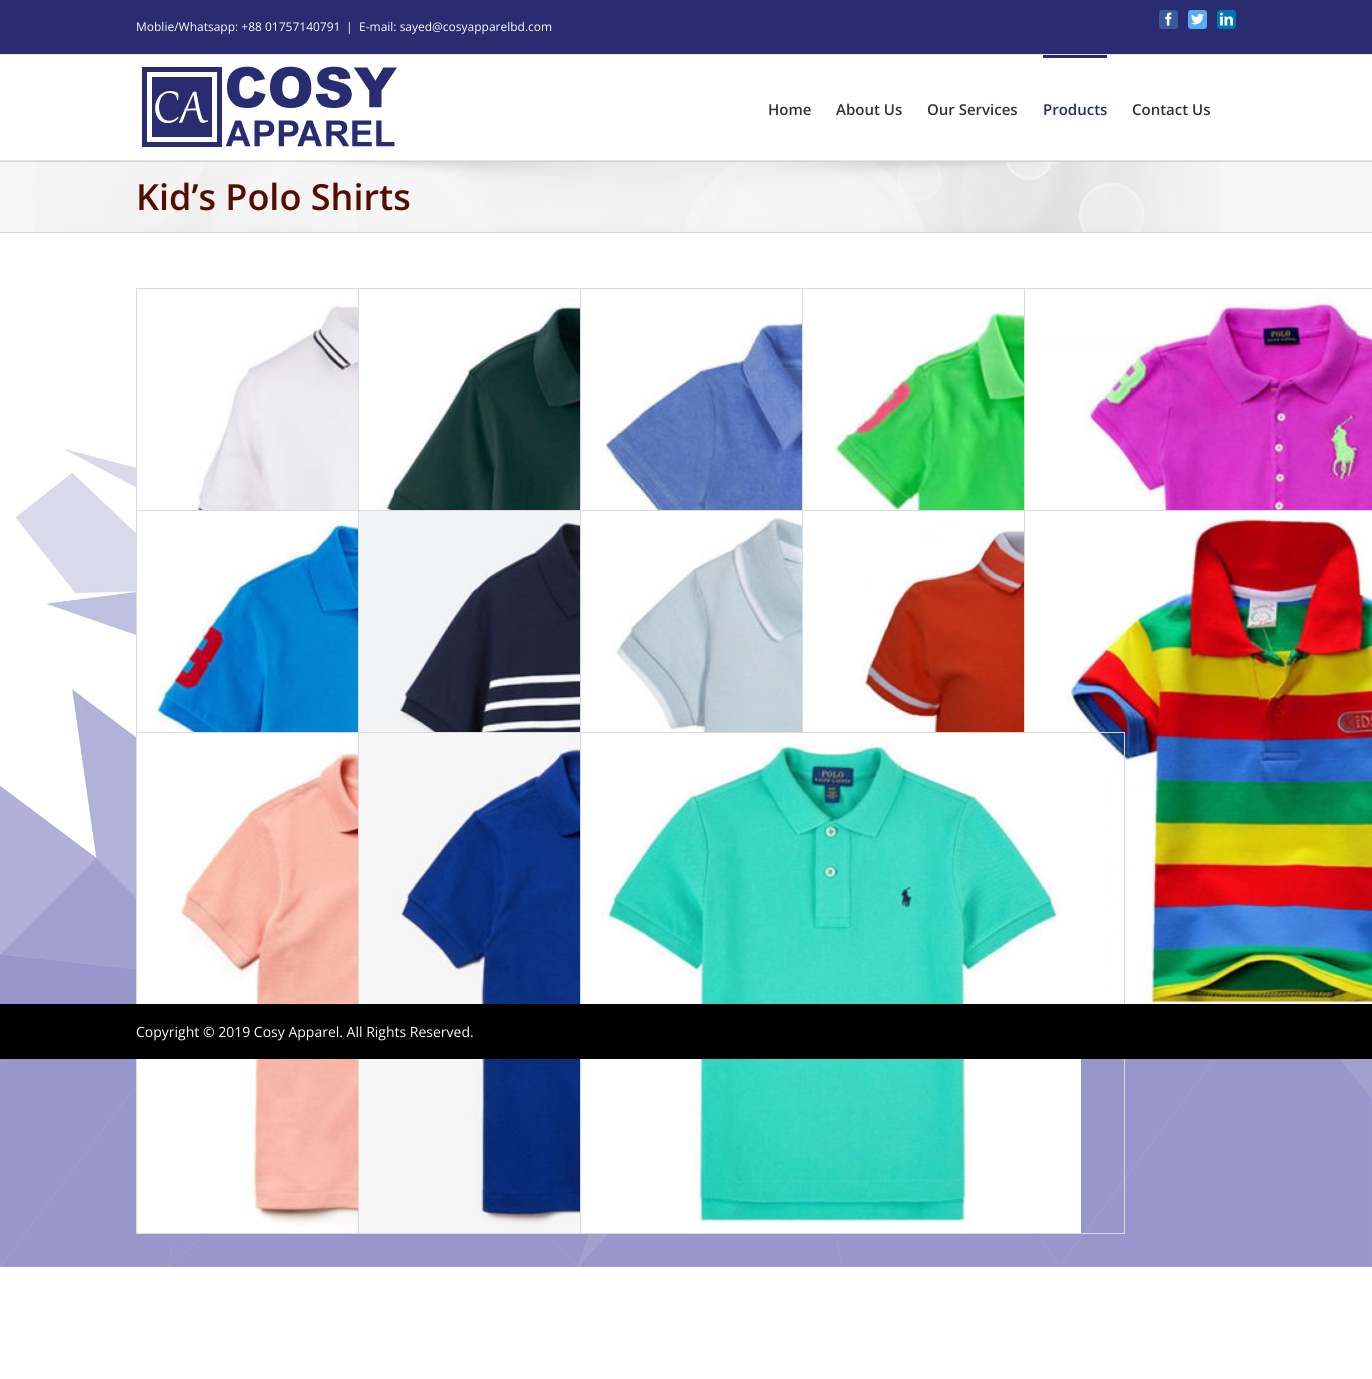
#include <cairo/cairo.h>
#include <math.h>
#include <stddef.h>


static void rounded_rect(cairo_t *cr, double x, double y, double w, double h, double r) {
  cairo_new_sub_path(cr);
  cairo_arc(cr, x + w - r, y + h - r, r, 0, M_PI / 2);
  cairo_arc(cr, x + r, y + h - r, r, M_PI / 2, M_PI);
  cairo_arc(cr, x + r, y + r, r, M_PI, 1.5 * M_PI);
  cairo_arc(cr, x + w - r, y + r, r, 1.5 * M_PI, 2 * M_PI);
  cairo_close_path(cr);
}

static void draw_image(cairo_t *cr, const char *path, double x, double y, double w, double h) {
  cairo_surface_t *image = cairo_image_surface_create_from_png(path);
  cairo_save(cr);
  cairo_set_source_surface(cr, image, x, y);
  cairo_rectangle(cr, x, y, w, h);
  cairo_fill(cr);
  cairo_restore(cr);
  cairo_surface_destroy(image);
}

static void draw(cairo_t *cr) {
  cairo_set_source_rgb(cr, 1, 1, 1);
  cairo_paint(cr);
  draw_image(cr, "images/1.png", 0, 449, 1372, 818);
  cairo_set_source_rgb(cr, 41 / 255.0, 44 / 255.0, 112 / 255.0);
  cairo_rectangle(cr, 0, 0, 1372, 54);
  cairo_fill(cr);
  cairo_set_source_rgb(cr, 229 / 255.0, 229 / 255.0, 229 / 255.0);
  cairo_rectangle(cr, 0, 54, 1372, 1);
  cairo_fill(cr);
  cairo_set_source_rgb(cr, 59 / 255.0, 89 / 255.0, 152 / 255.0);
  rounded_rect(cr, 1159.5, 10.5, 18, 18, 2.5);
  cairo_fill_preserve(cr);
  cairo_set_line_width(cr, 1);
  cairo_stroke(cr);
  draw_image(cr, "images/2.png", 1165, 12, 7, 14);
  cairo_set_source_rgb(cr, 85 / 255.0, 172 / 255.0, 238 / 255.0);
  rounded_rect(cr, 1188.5, 10.5, 18, 18, 2.5);
  cairo_fill_preserve(cr);
  cairo_stroke(cr);
  draw_image(cr, "images/3.png", 1191, 13, 13, 12);
  cairo_set_source_rgb(cr, 0, 119 / 255.0, 181 / 255.0);
  rounded_rect(cr, 1217.5, 10.5, 18, 18, 2.5);
  cairo_fill_preserve(cr);
  cairo_stroke(cr);
  draw_image(cr, "images/4.png", 1220, 12, 13, 14);
  cairo_set_source_rgb(cr, 229 / 255.0, 229 / 255.0, 229 / 255.0);
  cairo_rectangle(cr, 0, 160, 1372, 1);
  cairo_fill(cr);
  draw_image(cr, "images/5.png", 142, 66, 255, 81);
  cairo_set_source_rgb(cr, 41 / 255.0, 44 / 255.0, 112 / 255.0);
  cairo_rectangle(cr, 1043, 55, 64, 3);
  cairo_fill(cr);
  cairo_set_source_rgb(cr, 246 / 255.0, 246 / 255.0, 246 / 255.0);
  cairo_rectangle(cr, 0, 162, 1372, 70);
  cairo_fill(cr);
  draw_image(cr, "images/6.png", 34, 162, 1186, 70);
  cairo_set_source_rgb(cr, 210 / 255.0, 211 / 255.0, 212 / 255.0);
  cairo_rectangle(cr, 0, 161, 1372, 1);
  cairo_fill(cr);
  cairo_rectangle(cr, 0, 232, 1372, 1);
  cairo_fill(cr);
  cairo_rectangle(cr, 136.5, 288.5, 544, 501);
  cairo_set_source_rgb(cr, 219 / 255.0, 219 / 255.0, 219 / 255.0);
  cairo_stroke(cr);
  draw_image(cr, "images/7.png", 137, 303, 221, 207);
  cairo_rectangle(cr, 358.5, 288.5, 544, 501);
  cairo_stroke(cr);
  draw_image(cr, "images/8.png", 359, 289, 221, 221);
  cairo_rectangle(cr, 580.5, 288.5, 544, 501);
  cairo_stroke(cr);
  draw_image(cr, "images/9.png", 581, 289, 221, 221);
  cairo_rectangle(cr, 802.5, 288.5, 544, 501);
  cairo_stroke(cr);
  draw_image(cr, "images/10.png", 803, 289, 221, 221);
  cairo_rectangle(cr, 136.5, 510.5, 544, 501);
  cairo_stroke(cr);
  draw_image(cr, "images/11.png", 137, 511, 221, 221);
  cairo_rectangle(cr, 1024.5, 288.5, 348, 501);
  cairo_stroke(cr);
  draw_image(cr, "images/12.png", 1025, 289, 347, 221);
  cairo_rectangle(cr, 358.5, 510.5, 544, 501);
  cairo_stroke(cr);
  draw_image(cr, "images/13.png", 359, 511, 221, 221);
  cairo_rectangle(cr, 580.5, 510.5, 544, 501);
  cairo_stroke(cr);
  draw_image(cr, "images/14.png", 581, 511, 221, 221);
  cairo_rectangle(cr, 802.5, 510.5, 544, 501);
  cairo_stroke(cr);
  draw_image(cr, "images/15.png", 803, 511, 221, 221);
  cairo_rectangle(cr, 136.5, 732.5, 544, 501);
  cairo_stroke(cr);
  draw_image(cr, "images/16.png", 137, 733, 221, 500);
  cairo_rectangle(cr, 1024.5, 510.5, 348, 501);
  cairo_stroke(cr);
  draw_image(cr, "images/17.png", 1025, 511, 347, 493);
  cairo_rectangle(cr, 358.5, 732.5, 544, 501);
  cairo_stroke(cr);
  draw_image(cr, "images/18.png", 359, 733, 221, 500);
  cairo_rectangle(cr, 580.5, 732.5, 544, 501);
  cairo_stroke(cr);
  draw_image(cr, "images/19.png", 581, 733, 500, 500);
  cairo_set_source_rgb(cr, 0, 0, 0);
  cairo_rectangle(cr, 0, 1004, 1372, 55);
  cairo_fill(cr);
  cairo_select_font_face(cr, "Open Sans", CAIRO_FONT_SLANT_NORMAL, CAIRO_FONT_WEIGHT_NORMAL);
  cairo_set_font_size(cr, 12);
  cairo_set_source_rgb(cr, 1, 1, 1);
  cairo_move_to(cr, 136, 31);
  cairo_show_text(cr, "Moblie/Whatsapp: +88 01757140791");
  cairo_move_to(cr, 346, 31);
  cairo_show_text(cr, "|");
  cairo_move_to(cr, 359, 31);
  cairo_show_text(cr, "E-mail: sayed@cosyapparelbd.com");
  cairo_select_font_face(cr, "Open Sans SemiBold", CAIRO_FONT_SLANT_NORMAL, CAIRO_FONT_WEIGHT_NORMAL);
  cairo_set_font_size(cr, 15);
  cairo_set_source_rgb(cr, 51 / 255.0, 51 / 255.0, 51 / 255.0);
  cairo_move_to(cr, 768, 115);
  cairo_show_text(cr, "Home");
  cairo_move_to(cr, 836, 115);
  cairo_show_text(cr, "About Us");
  cairo_move_to(cr, 927, 115);
  cairo_show_text(cr, "Our Services");
  cairo_set_source_rgb(cr, 41 / 255.0, 44 / 255.0, 112 / 255.0);
  cairo_move_to(cr, 1043, 115);
  cairo_show_text(cr, "Products");
  cairo_set_source_rgb(cr, 51 / 255.0, 51 / 255.0, 51 / 255.0);
  cairo_move_to(cr, 1132, 115);
  cairo_show_text(cr, "Contact Us");
  cairo_set_font_size(cr, 36);
  cairo_set_source_rgb(cr, 86 / 255.0, 13 / 255.0, 1 / 255.0);
  cairo_move_to(cr, 136, 210);
  cairo_show_text(cr, "Kid’s Polo Shirts");
  cairo_select_font_face(cr, "Open Sans", CAIRO_FONT_SLANT_NORMAL, CAIRO_FONT_WEIGHT_NORMAL);
  cairo_set_font_size(cr, 14);
  cairo_set_source_rgb(cr, 1, 1, 1);
  cairo_move_to(cr, 136, 1037);
  cairo_show_text(cr, "Copyright © 2019 Cosy Apparel. All Rights Reserved.");
}

int main(void) {
  cairo_surface_t *surface = cairo_image_surface_create(CAIRO_FORMAT_RGB24, 1372, 1379);
  cairo_t *cr = cairo_create(surface);
  cairo_font_options_t *options = cairo_font_options_create();
  cairo_font_options_set_hint_metrics(options, CAIRO_HINT_METRICS_OFF);
  cairo_font_options_set_hint_style(options, CAIRO_HINT_STYLE_NONE);
  cairo_set_font_options(cr, options);
  cairo_set_miter_limit(cr, 4);
  draw(cr);
  cairo_surface_write_to_png(surface, "out.png");
  cairo_font_options_destroy(options);
  cairo_destroy(cr);
  cairo_surface_destroy(surface);
  return 0;
}
